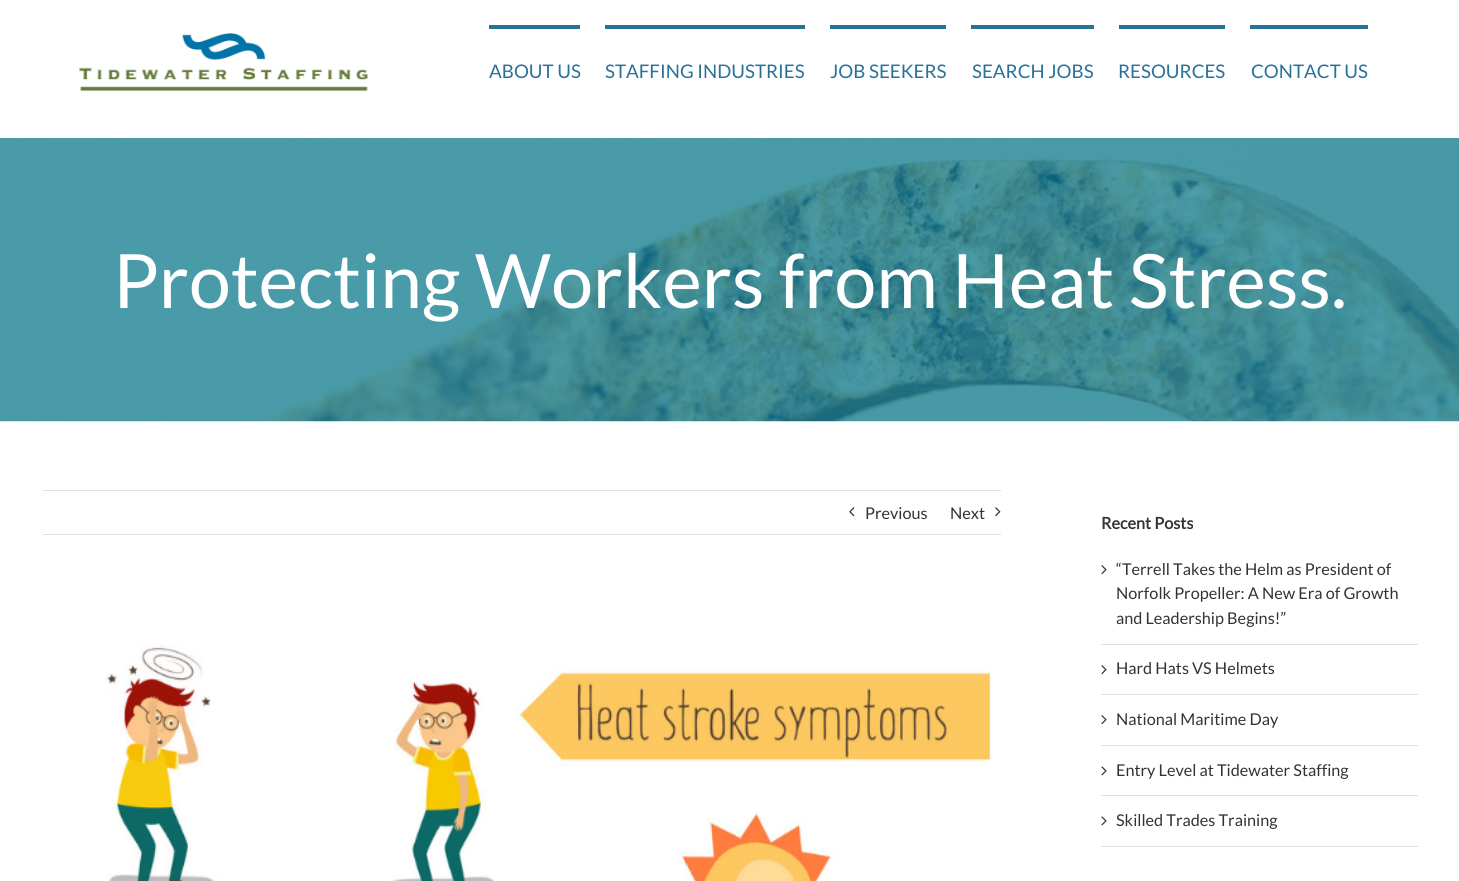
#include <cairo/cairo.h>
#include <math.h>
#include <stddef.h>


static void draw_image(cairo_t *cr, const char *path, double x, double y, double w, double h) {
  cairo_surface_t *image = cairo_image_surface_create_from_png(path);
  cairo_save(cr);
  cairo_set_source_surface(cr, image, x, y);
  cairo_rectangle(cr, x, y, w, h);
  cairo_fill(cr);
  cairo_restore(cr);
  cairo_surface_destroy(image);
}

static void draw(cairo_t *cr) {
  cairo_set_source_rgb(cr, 1, 1, 1);
  cairo_paint(cr);
  draw_image(cr, "images/1.png", 79, 33, 290, 58);
  cairo_set_source_rgb(cr, 40 / 255.0, 114 / 255.0, 154 / 255.0);
  cairo_rectangle(cr, 489, 25, 91, 4);
  cairo_fill(cr);
  cairo_rectangle(cr, 605, 25, 200, 4);
  cairo_fill(cr);
  cairo_rectangle(cr, 830, 25, 116, 4);
  cairo_fill(cr);
  cairo_rectangle(cr, 971, 25, 123, 4);
  cairo_fill(cr);
  cairo_rectangle(cr, 1119, 25, 106, 4);
  cairo_fill(cr);
  cairo_rectangle(cr, 1250, 25, 118, 4);
  cairo_fill(cr);
  draw_image(cr, "images/2.png", 0, 138, 1459, 284);
  cairo_set_source_rgb(cr, 224 / 255.0, 222 / 255.0, 222 / 255.0);
  cairo_rectangle(cr, 43, 490, 958, 1);
  cairo_fill(cr);
  cairo_rectangle(cr, 43, 534, 958, 1);
  cairo_fill(cr);
  draw_image(cr, "images/3.png", 849, 507, 6, 10);
  draw_image(cr, "images/4.png", 995, 507, 6, 10);
  draw_image(cr, "images/5.png", 105, 643, 886, 238);
  cairo_rectangle(cr, 1101, 644, 317, 1);
  cairo_fill(cr);
  draw_image(cr, "images/6.png", 1101, 565, 6, 10);
  cairo_rectangle(cr, 1101, 694, 317, 1);
  cairo_fill(cr);
  draw_image(cr, "images/6.png", 1101, 665, 6, 10);
  cairo_rectangle(cr, 1101, 745, 317, 1);
  cairo_fill(cr);
  draw_image(cr, "images/6.png", 1101, 715, 6, 10);
  cairo_rectangle(cr, 1101, 795, 317, 1);
  cairo_fill(cr);
  draw_image(cr, "images/7.png", 1101, 766, 6, 10);
  cairo_rectangle(cr, 1101, 846, 317, 1);
  cairo_fill(cr);
  draw_image(cr, "images/7.png", 1101, 816, 6, 10);
  cairo_select_font_face(cr, "Lato", CAIRO_FONT_SLANT_NORMAL, CAIRO_FONT_WEIGHT_NORMAL);
  cairo_set_font_size(cr, 18.75);
  cairo_set_source_rgb(cr, 40 / 255.0, 114 / 255.0, 154 / 255.0);
  cairo_move_to(cr, 489, 78);
  cairo_show_text(cr, "ABOUT US");
  cairo_move_to(cr, 605, 78);
  cairo_show_text(cr, "STAFFING INDUSTRIES");
  cairo_move_to(cr, 830, 78);
  cairo_show_text(cr, "JOB SEEKERS");
  cairo_move_to(cr, 972, 78);
  cairo_show_text(cr, "SEARCH JOBS");
  cairo_move_to(cr, 1118, 78);
  cairo_show_text(cr, "RESOURCES");
  cairo_move_to(cr, 1251, 78);
  cairo_show_text(cr, "CONTACT US");
  cairo_set_font_size(cr, 75);
  cairo_set_source_rgb(cr, 1, 1, 1);
  cairo_move_to(cr, 113, 308);
  cairo_show_text(cr, "Protecting Workers from Heat Stress.");
  cairo_set_font_size(cr, 16.25);
  cairo_set_source_rgb(cr, 51 / 255.0, 51 / 255.0, 51 / 255.0);
  cairo_move_to(cr, 865, 519);
  cairo_show_text(cr, "Previous");
  cairo_move_to(cr, 950, 519);
  cairo_show_text(cr, "Next");
  cairo_select_font_face(cr, "Lato", CAIRO_FONT_SLANT_NORMAL, CAIRO_FONT_WEIGHT_BOLD);
  cairo_move_to(cr, 1101, 529);
  cairo_show_text(cr, "Recent Posts");
  cairo_select_font_face(cr, "Lato", CAIRO_FONT_SLANT_NORMAL, CAIRO_FONT_WEIGHT_NORMAL);
  cairo_move_to(cr, 1116, 575);
  cairo_show_text(cr, "“Terrell Takes the Helm as President of");
  cairo_move_to(cr, 1116, 599);
  cairo_show_text(cr, "Norfolk Propeller: A New Era of Growth");
  cairo_move_to(cr, 1116, 624);
  cairo_show_text(cr, "and Leadership Begins!”");
  cairo_move_to(cr, 1116, 674);
  cairo_show_text(cr, "Hard Hats VS Helmets");
  cairo_move_to(cr, 1116, 725);
  cairo_show_text(cr, "National Maritime Day");
  cairo_move_to(cr, 1116, 776);
  cairo_show_text(cr, "Entry Level at Tidewater Staffing");
  cairo_move_to(cr, 1116, 826);
  cairo_show_text(cr, "Skilled Trades Training");
}

int main(void) {
  cairo_surface_t *surface = cairo_image_surface_create(CAIRO_FORMAT_RGB24, 1459, 881);
  cairo_t *cr = cairo_create(surface);
  cairo_font_options_t *options = cairo_font_options_create();
  cairo_font_options_set_hint_metrics(options, CAIRO_HINT_METRICS_OFF);
  cairo_font_options_set_hint_style(options, CAIRO_HINT_STYLE_NONE);
  cairo_set_font_options(cr, options);
  cairo_set_miter_limit(cr, 4);
  draw(cr);
  cairo_surface_write_to_png(surface, "out.png");
  cairo_font_options_destroy(options);
  cairo_destroy(cr);
  cairo_surface_destroy(surface);
  return 0;
}
